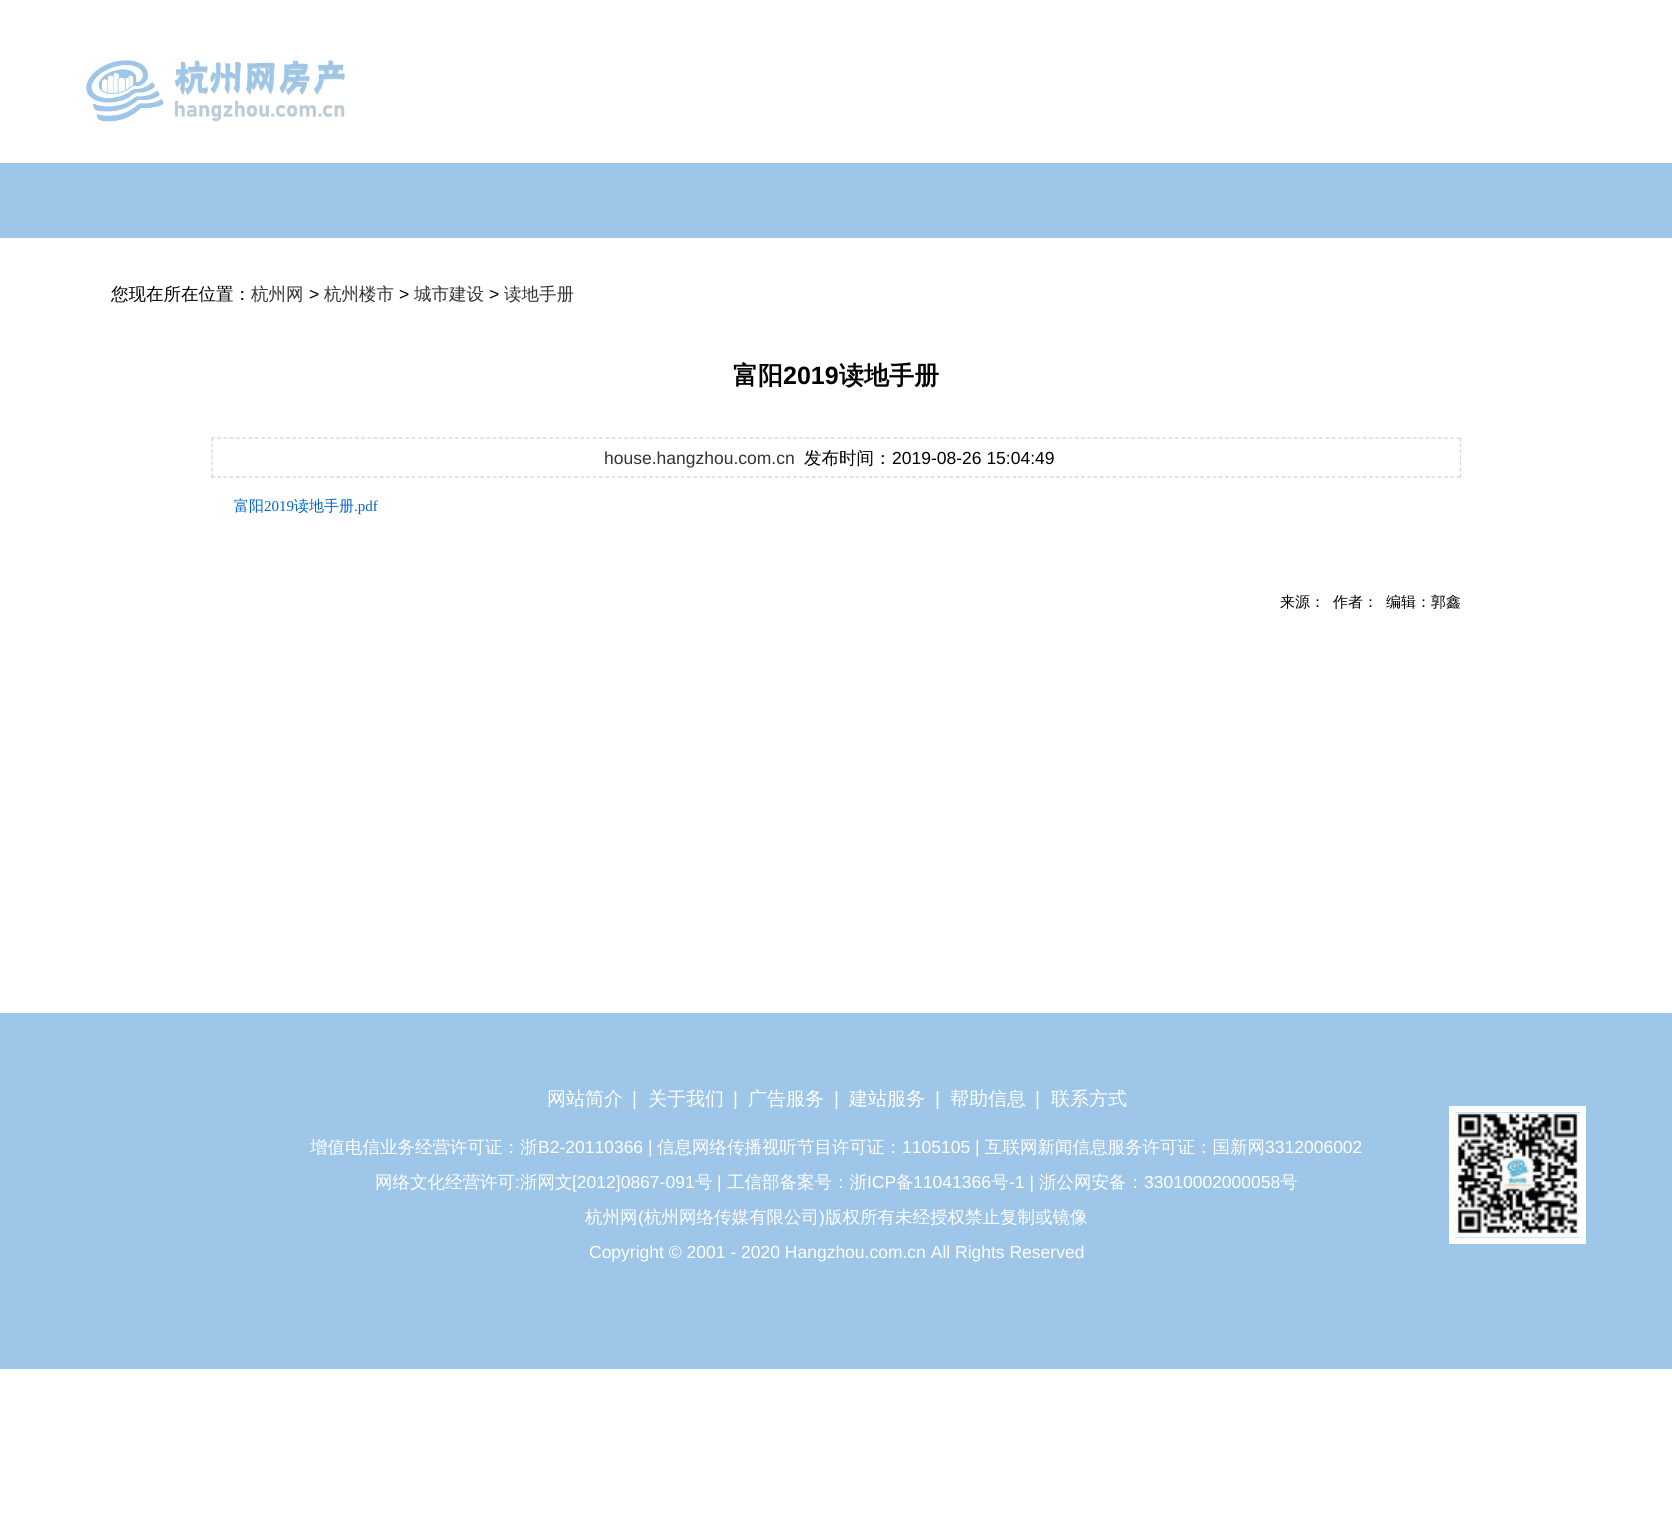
#include <cairo/cairo.h>
#include <math.h>
#include <stddef.h>


static void draw_image(cairo_t *cr, const char *path, double x, double y, double w, double h) {
  cairo_surface_t *image = cairo_image_surface_create_from_png(path);
  cairo_save(cr);
  cairo_set_source_surface(cr, image, x, y);
  cairo_rectangle(cr, x, y, w, h);
  cairo_fill(cr);
  cairo_restore(cr);
  cairo_surface_destroy(image);
}

static void draw(cairo_t *cr) {
  cairo_set_source_rgb(cr, 1, 1, 1);
  cairo_paint(cr);
  draw_image(cr, "images/1.png", 86, 60, 259, 62);
  cairo_set_source_rgb(cr, 158 / 255.0, 198 / 255.0, 232 / 255.0);
  cairo_rectangle(cr, 0, 163, 1672, 75);
  cairo_fill(cr);
  cairo_new_path(cr);
  cairo_move_to(cr, 211, 438);
  cairo_line_to(cr, 1461, 438);
  cairo_set_source_rgb(cr, 211 / 255.0, 211 / 255.0, 211 / 255.0);
  cairo_set_line_width(cr, 1.2);
  cairo_set_dash(cr, (double[]){3.75, 2.51}, 2, 0);
  cairo_stroke(cr);
  cairo_new_path(cr);
  cairo_move_to(cr, 1460.5, 437.5);
  cairo_line_to(cr, 1460.5, 477.5);
  cairo_set_dash(cr, (double[]){3.75, 2.29}, 2, 0);
  cairo_stroke(cr);
  cairo_new_path(cr);
  cairo_move_to(cr, 211, 477);
  cairo_line_to(cr, 1461, 477);
  cairo_set_dash(cr, (double[]){3.75, 2.51}, 2, 0);
  cairo_stroke(cr);
  cairo_new_path(cr);
  cairo_move_to(cr, 212, 437.5);
  cairo_line_to(cr, 212, 477.5);
  cairo_set_dash(cr, (double[]){3.75, 2.29}, 2, 0);
  cairo_stroke(cr);
  cairo_set_source_rgb(cr, 158 / 255.0, 198 / 255.0, 232 / 255.0);
  cairo_rectangle(cr, 0, 1013, 1672, 356);
  cairo_fill(cr);
  cairo_rectangle(cr, 1452, 1109, 131, 132);
  cairo_set_source_rgb(cr, 1, 1, 1);
  cairo_set_line_width(cr, 6);
  cairo_set_dash(cr, NULL, 0, 0);
  cairo_stroke(cr);
  draw_image(cr, "images/2.png", 1455, 1112, 125, 126);
  cairo_select_font_face(cr, "WenQuanYi Zen Hei Medium", CAIRO_FONT_SLANT_NORMAL, CAIRO_FONT_WEIGHT_NORMAL);
  cairo_set_font_size(cr, 17.5);
  cairo_set_source_rgb(cr, 0, 0, 0);
  cairo_move_to(cr, 111, 300);
  cairo_show_text(cr, "您现在所在位置：");
  cairo_set_source_rgb(cr, 51 / 255.0, 51 / 255.0, 51 / 255.0);
  cairo_move_to(cr, 251, 300);
  cairo_show_text(cr, "杭州网");
  cairo_select_font_face(cr, "Liberation Sans", CAIRO_FONT_SLANT_NORMAL, CAIRO_FONT_WEIGHT_NORMAL);
  cairo_set_source_rgb(cr, 0, 0, 0);
  cairo_move_to(cr, 309, 300);
  cairo_show_text(cr, ">");
  cairo_select_font_face(cr, "WenQuanYi Zen Hei Medium", CAIRO_FONT_SLANT_NORMAL, CAIRO_FONT_WEIGHT_NORMAL);
  cairo_set_source_rgb(cr, 51 / 255.0, 51 / 255.0, 51 / 255.0);
  cairo_move_to(cr, 324, 300);
  cairo_show_text(cr, "杭州楼市");
  cairo_select_font_face(cr, "Liberation Sans", CAIRO_FONT_SLANT_NORMAL, CAIRO_FONT_WEIGHT_NORMAL);
  cairo_set_source_rgb(cr, 0, 0, 0);
  cairo_move_to(cr, 399, 300);
  cairo_show_text(cr, ">");
  cairo_select_font_face(cr, "WenQuanYi Zen Hei Medium", CAIRO_FONT_SLANT_NORMAL, CAIRO_FONT_WEIGHT_NORMAL);
  cairo_set_source_rgb(cr, 51 / 255.0, 51 / 255.0, 51 / 255.0);
  cairo_move_to(cr, 414, 300);
  cairo_show_text(cr, "城市建设");
  cairo_select_font_face(cr, "Liberation Sans", CAIRO_FONT_SLANT_NORMAL, CAIRO_FONT_WEIGHT_NORMAL);
  cairo_set_source_rgb(cr, 0, 0, 0);
  cairo_move_to(cr, 489, 300);
  cairo_show_text(cr, ">");
  cairo_select_font_face(cr, "WenQuanYi Zen Hei Medium", CAIRO_FONT_SLANT_NORMAL, CAIRO_FONT_WEIGHT_NORMAL);
  cairo_set_source_rgb(cr, 51 / 255.0, 51 / 255.0, 51 / 255.0);
  cairo_move_to(cr, 504, 300);
  cairo_show_text(cr, "读地手册");
  cairo_select_font_face(cr, "WenQuanYi Zen Hei", CAIRO_FONT_SLANT_NORMAL, CAIRO_FONT_WEIGHT_BOLD);
  cairo_set_font_size(cr, 25);
  cairo_set_source_rgb(cr, 0, 0, 0);
  cairo_move_to(cr, 733, 384);
  cairo_show_text(cr, "富阳");
  cairo_select_font_face(cr, "Liberation Sans", CAIRO_FONT_SLANT_NORMAL, CAIRO_FONT_WEIGHT_BOLD);
  cairo_move_to(cr, 783, 384);
  cairo_show_text(cr, "2019");
  cairo_select_font_face(cr, "WenQuanYi Zen Hei", CAIRO_FONT_SLANT_NORMAL, CAIRO_FONT_WEIGHT_BOLD);
  cairo_move_to(cr, 839, 384);
  cairo_show_text(cr, "读地手册");
  cairo_select_font_face(cr, "Liberation Sans", CAIRO_FONT_SLANT_NORMAL, CAIRO_FONT_WEIGHT_NORMAL);
  cairo_set_font_size(cr, 17.5);
  cairo_set_source_rgb(cr, 51 / 255.0, 51 / 255.0, 51 / 255.0);
  cairo_move_to(cr, 604, 464);
  cairo_show_text(cr, "house.hangzhou.com.cn");
  cairo_select_font_face(cr, "WenQuanYi Zen Hei Medium", CAIRO_FONT_SLANT_NORMAL, CAIRO_FONT_WEIGHT_NORMAL);
  cairo_set_source_rgb(cr, 0, 0, 0);
  cairo_move_to(cr, 804, 464);
  cairo_show_text(cr, "发布时间：");
  cairo_select_font_face(cr, "Liberation Sans", CAIRO_FONT_SLANT_NORMAL, CAIRO_FONT_WEIGHT_NORMAL);
  cairo_move_to(cr, 892, 464);
  cairo_show_text(cr, "2019-08-26 15:04:49");
  cairo_select_font_face(cr, "WenQuanYi Zen Hei Medium", CAIRO_FONT_SLANT_NORMAL, CAIRO_FONT_WEIGHT_NORMAL);
  cairo_set_font_size(cr, 15);
  cairo_set_source_rgb(cr, 0, 102 / 255.0, 204 / 255.0);
  cairo_move_to(cr, 234, 511);
  cairo_show_text(cr, "富阳");
  cairo_select_font_face(cr, "Liberation Serif", CAIRO_FONT_SLANT_NORMAL, CAIRO_FONT_WEIGHT_NORMAL);
  cairo_move_to(cr, 264, 511);
  cairo_show_text(cr, "2019");
  cairo_select_font_face(cr, "WenQuanYi Zen Hei Medium", CAIRO_FONT_SLANT_NORMAL, CAIRO_FONT_WEIGHT_NORMAL);
  cairo_move_to(cr, 294, 511);
  cairo_show_text(cr, "读地手册");
  cairo_select_font_face(cr, "Liberation Serif", CAIRO_FONT_SLANT_NORMAL, CAIRO_FONT_WEIGHT_NORMAL);
  cairo_move_to(cr, 354, 511);
  cairo_show_text(cr, ".pdf");
  cairo_select_font_face(cr, "WenQuanYi Zen Hei Medium", CAIRO_FONT_SLANT_NORMAL, CAIRO_FONT_WEIGHT_NORMAL);
  cairo_set_source_rgb(cr, 0, 0, 0);
  cairo_move_to(cr, 1280, 607);
  cairo_show_text(cr, "来源：");
  cairo_move_to(cr, 1333, 607);
  cairo_show_text(cr, "作者：");
  cairo_move_to(cr, 1386, 607);
  cairo_show_text(cr, "编辑：郭鑫");
  cairo_set_font_size(cr, 19);
  cairo_set_source_rgb(cr, 1, 1, 1);
  cairo_move_to(cr, 547, 1105);
  cairo_show_text(cr, "网站简介");
  cairo_select_font_face(cr, "Liberation Sans", CAIRO_FONT_SLANT_NORMAL, CAIRO_FONT_WEIGHT_NORMAL);
  cairo_move_to(cr, 632, 1105);
  cairo_show_text(cr, "|");
  cairo_select_font_face(cr, "WenQuanYi Zen Hei Medium", CAIRO_FONT_SLANT_NORMAL, CAIRO_FONT_WEIGHT_NORMAL);
  cairo_move_to(cr, 648, 1105);
  cairo_show_text(cr, "关于我们");
  cairo_select_font_face(cr, "Liberation Sans", CAIRO_FONT_SLANT_NORMAL, CAIRO_FONT_WEIGHT_NORMAL);
  cairo_move_to(cr, 733, 1105);
  cairo_show_text(cr, "|");
  cairo_select_font_face(cr, "WenQuanYi Zen Hei Medium", CAIRO_FONT_SLANT_NORMAL, CAIRO_FONT_WEIGHT_NORMAL);
  cairo_move_to(cr, 748, 1105);
  cairo_show_text(cr, "广告服务");
  cairo_select_font_face(cr, "Liberation Sans", CAIRO_FONT_SLANT_NORMAL, CAIRO_FONT_WEIGHT_NORMAL);
  cairo_move_to(cr, 834, 1105);
  cairo_show_text(cr, "|");
  cairo_select_font_face(cr, "WenQuanYi Zen Hei Medium", CAIRO_FONT_SLANT_NORMAL, CAIRO_FONT_WEIGHT_NORMAL);
  cairo_move_to(cr, 849, 1105);
  cairo_show_text(cr, "建站服务");
  cairo_select_font_face(cr, "Liberation Sans", CAIRO_FONT_SLANT_NORMAL, CAIRO_FONT_WEIGHT_NORMAL);
  cairo_move_to(cr, 935, 1105);
  cairo_show_text(cr, "|");
  cairo_select_font_face(cr, "WenQuanYi Zen Hei Medium", CAIRO_FONT_SLANT_NORMAL, CAIRO_FONT_WEIGHT_NORMAL);
  cairo_move_to(cr, 950, 1105);
  cairo_show_text(cr, "帮助信息");
  cairo_select_font_face(cr, "Liberation Sans", CAIRO_FONT_SLANT_NORMAL, CAIRO_FONT_WEIGHT_NORMAL);
  cairo_move_to(cr, 1035, 1105);
  cairo_show_text(cr, "|");
  cairo_select_font_face(cr, "WenQuanYi Zen Hei Medium", CAIRO_FONT_SLANT_NORMAL, CAIRO_FONT_WEIGHT_NORMAL);
  cairo_move_to(cr, 1051, 1105);
  cairo_show_text(cr, "联系方式");
  cairo_set_font_size(cr, 17.5);
  cairo_move_to(cr, 310, 1153);
  cairo_show_text(cr, "增值电信业务经营许可证：浙");
  cairo_select_font_face(cr, "Liberation Sans", CAIRO_FONT_SLANT_NORMAL, CAIRO_FONT_WEIGHT_NORMAL);
  cairo_move_to(cr, 538, 1153);
  cairo_show_text(cr, "B2-20110366 |");
  cairo_select_font_face(cr, "WenQuanYi Zen Hei Medium", CAIRO_FONT_SLANT_NORMAL, CAIRO_FONT_WEIGHT_NORMAL);
  cairo_move_to(cr, 657, 1153);
  cairo_show_text(cr, "信息网络传播视听节目许可证：");
  cairo_select_font_face(cr, "Liberation Sans", CAIRO_FONT_SLANT_NORMAL, CAIRO_FONT_WEIGHT_NORMAL);
  cairo_move_to(cr, 902, 1153);
  cairo_show_text(cr, "1105105 |");
  cairo_select_font_face(cr, "WenQuanYi Zen Hei Medium", CAIRO_FONT_SLANT_NORMAL, CAIRO_FONT_WEIGHT_NORMAL);
  cairo_move_to(cr, 985, 1153);
  cairo_show_text(cr, "互联网新闻信息服务许可证：国新网");
  cairo_select_font_face(cr, "Liberation Sans", CAIRO_FONT_SLANT_NORMAL, CAIRO_FONT_WEIGHT_NORMAL);
  cairo_move_to(cr, 1265, 1153);
  cairo_show_text(cr, "3312006002");
  cairo_select_font_face(cr, "WenQuanYi Zen Hei Medium", CAIRO_FONT_SLANT_NORMAL, CAIRO_FONT_WEIGHT_NORMAL);
  cairo_move_to(cr, 375, 1188);
  cairo_show_text(cr, "网络文化经营许可");
  cairo_select_font_face(cr, "Liberation Sans", CAIRO_FONT_SLANT_NORMAL, CAIRO_FONT_WEIGHT_NORMAL);
  cairo_move_to(cr, 515, 1188);
  cairo_show_text(cr, ":");
  cairo_select_font_face(cr, "WenQuanYi Zen Hei Medium", CAIRO_FONT_SLANT_NORMAL, CAIRO_FONT_WEIGHT_NORMAL);
  cairo_move_to(cr, 520, 1188);
  cairo_show_text(cr, "浙网文");
  cairo_select_font_face(cr, "Liberation Sans", CAIRO_FONT_SLANT_NORMAL, CAIRO_FONT_WEIGHT_NORMAL);
  cairo_move_to(cr, 572, 1188);
  cairo_show_text(cr, "[2012]0867-091");
  cairo_select_font_face(cr, "WenQuanYi Zen Hei Medium", CAIRO_FONT_SLANT_NORMAL, CAIRO_FONT_WEIGHT_NORMAL);
  cairo_move_to(cr, 695, 1188);
  cairo_show_text(cr, "号");
  cairo_select_font_face(cr, "Liberation Sans", CAIRO_FONT_SLANT_NORMAL, CAIRO_FONT_WEIGHT_NORMAL);
  cairo_move_to(cr, 717, 1188);
  cairo_show_text(cr, "|");
  cairo_select_font_face(cr, "WenQuanYi Zen Hei Medium", CAIRO_FONT_SLANT_NORMAL, CAIRO_FONT_WEIGHT_NORMAL);
  cairo_move_to(cr, 727, 1188);
  cairo_show_text(cr, "工信部备案号：浙");
  cairo_select_font_face(cr, "Liberation Sans", CAIRO_FONT_SLANT_NORMAL, CAIRO_FONT_WEIGHT_NORMAL);
  cairo_move_to(cr, 867, 1188);
  cairo_show_text(cr, "ICP");
  cairo_select_font_face(cr, "WenQuanYi Zen Hei Medium", CAIRO_FONT_SLANT_NORMAL, CAIRO_FONT_WEIGHT_NORMAL);
  cairo_move_to(cr, 896, 1188);
  cairo_show_text(cr, "备");
  cairo_select_font_face(cr, "Liberation Sans", CAIRO_FONT_SLANT_NORMAL, CAIRO_FONT_WEIGHT_NORMAL);
  cairo_move_to(cr, 913, 1188);
  cairo_show_text(cr, "11041366");
  cairo_select_font_face(cr, "WenQuanYi Zen Hei Medium", CAIRO_FONT_SLANT_NORMAL, CAIRO_FONT_WEIGHT_NORMAL);
  cairo_move_to(cr, 991, 1188);
  cairo_show_text(cr, "号");
  cairo_select_font_face(cr, "Liberation Sans", CAIRO_FONT_SLANT_NORMAL, CAIRO_FONT_WEIGHT_NORMAL);
  cairo_move_to(cr, 1009, 1188);
  cairo_show_text(cr, "-1 |");
  cairo_select_font_face(cr, "WenQuanYi Zen Hei Medium", CAIRO_FONT_SLANT_NORMAL, CAIRO_FONT_WEIGHT_NORMAL);
  cairo_move_to(cr, 1039, 1188);
  cairo_show_text(cr, "浙公网安备：");
  cairo_select_font_face(cr, "Liberation Sans", CAIRO_FONT_SLANT_NORMAL, CAIRO_FONT_WEIGHT_NORMAL);
  cairo_move_to(cr, 1144, 1188);
  cairo_show_text(cr, "33010002000058");
  cairo_select_font_face(cr, "WenQuanYi Zen Hei Medium", CAIRO_FONT_SLANT_NORMAL, CAIRO_FONT_WEIGHT_NORMAL);
  cairo_move_to(cr, 1280, 1188);
  cairo_show_text(cr, "号");
  cairo_move_to(cr, 585, 1223);
  cairo_show_text(cr, "杭州网");
  cairo_select_font_face(cr, "Liberation Sans", CAIRO_FONT_SLANT_NORMAL, CAIRO_FONT_WEIGHT_NORMAL);
  cairo_move_to(cr, 638, 1223);
  cairo_show_text(cr, "(");
  cairo_select_font_face(cr, "WenQuanYi Zen Hei Medium", CAIRO_FONT_SLANT_NORMAL, CAIRO_FONT_WEIGHT_NORMAL);
  cairo_move_to(cr, 644, 1223);
  cairo_show_text(cr, "杭州网络传媒有限公司");
  cairo_select_font_face(cr, "Liberation Sans", CAIRO_FONT_SLANT_NORMAL, CAIRO_FONT_WEIGHT_NORMAL);
  cairo_move_to(cr, 819, 1223);
  cairo_show_text(cr, ")");
  cairo_select_font_face(cr, "WenQuanYi Zen Hei Medium", CAIRO_FONT_SLANT_NORMAL, CAIRO_FONT_WEIGHT_NORMAL);
  cairo_move_to(cr, 825, 1223);
  cairo_show_text(cr, "版权所有未经授权禁止复制或镜像");
  cairo_select_font_face(cr, "Liberation Sans", CAIRO_FONT_SLANT_NORMAL, CAIRO_FONT_WEIGHT_NORMAL);
  cairo_move_to(cr, 589, 1258);
  cairo_show_text(cr, "Copyright © 2001 - 2020 Hangzhou.com.cn All Rights Reserved");
}

int main(void) {
  cairo_surface_t *surface = cairo_image_surface_create(CAIRO_FORMAT_RGB24, 1672, 1526);
  cairo_t *cr = cairo_create(surface);
  cairo_font_options_t *options = cairo_font_options_create();
  cairo_font_options_set_hint_metrics(options, CAIRO_HINT_METRICS_OFF);
  cairo_font_options_set_hint_style(options, CAIRO_HINT_STYLE_NONE);
  cairo_set_font_options(cr, options);
  cairo_set_miter_limit(cr, 4);
  draw(cr);
  cairo_surface_write_to_png(surface, "out.png");
  cairo_font_options_destroy(options);
  cairo_destroy(cr);
  cairo_surface_destroy(surface);
  return 0;
}
